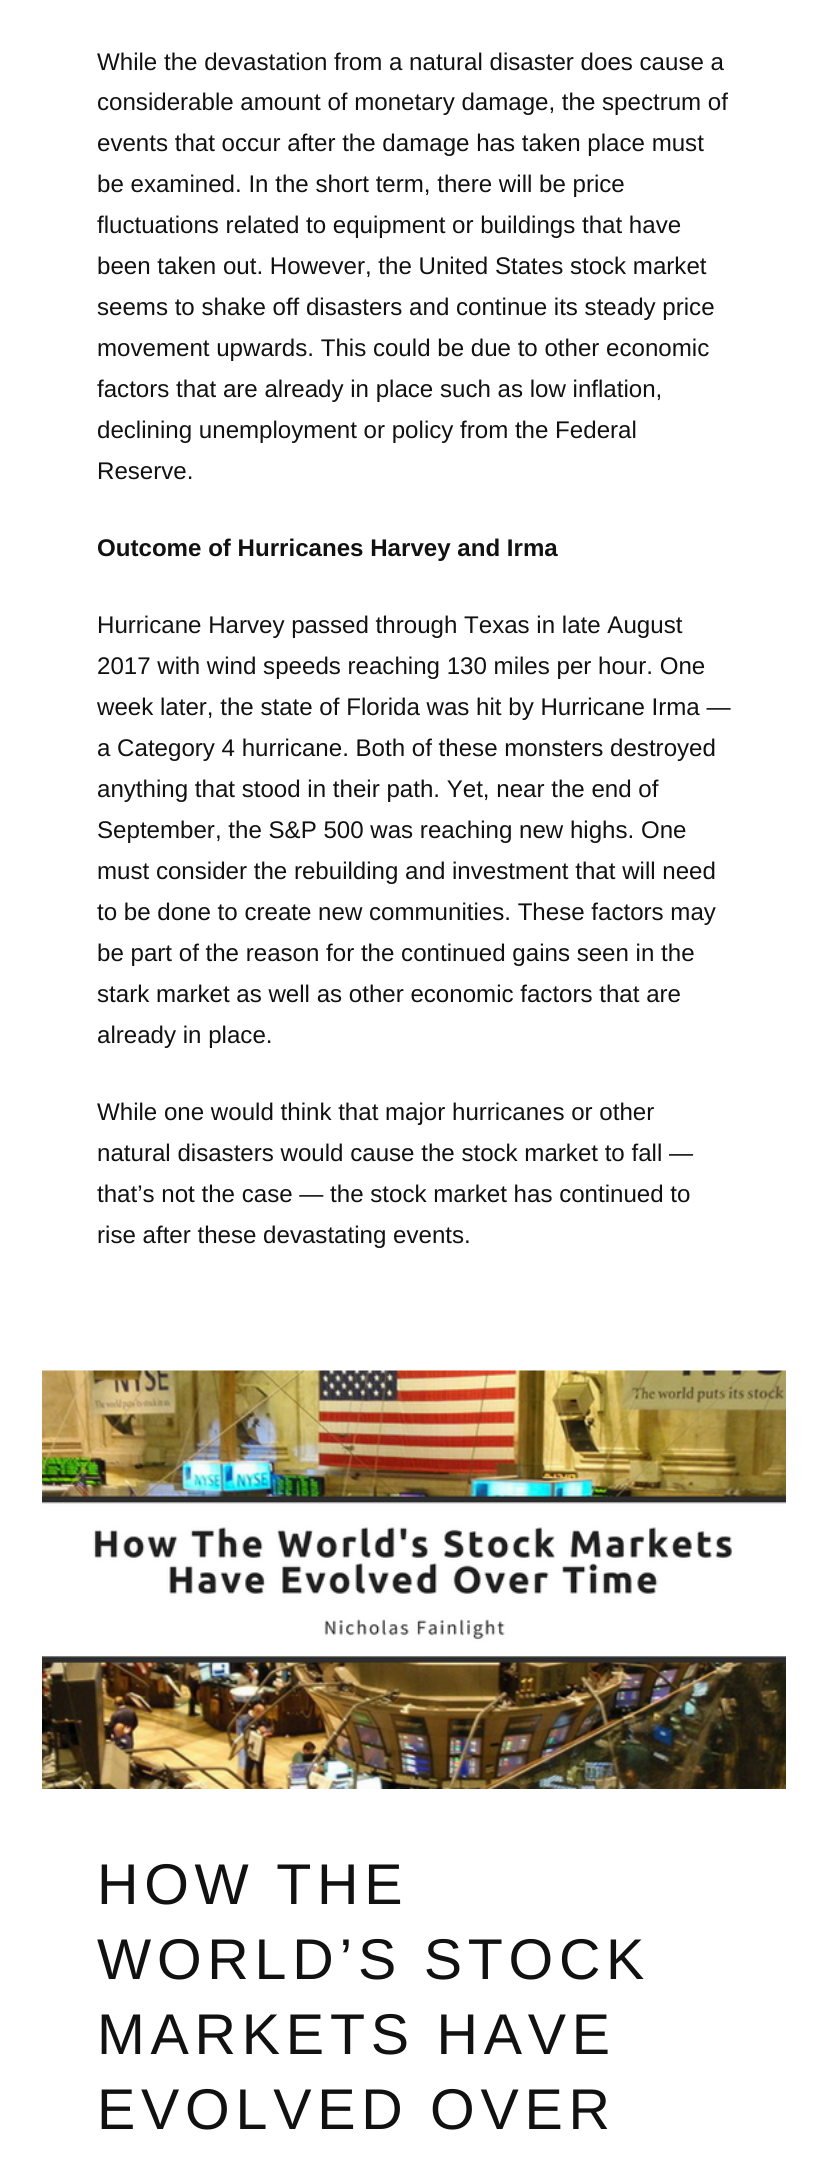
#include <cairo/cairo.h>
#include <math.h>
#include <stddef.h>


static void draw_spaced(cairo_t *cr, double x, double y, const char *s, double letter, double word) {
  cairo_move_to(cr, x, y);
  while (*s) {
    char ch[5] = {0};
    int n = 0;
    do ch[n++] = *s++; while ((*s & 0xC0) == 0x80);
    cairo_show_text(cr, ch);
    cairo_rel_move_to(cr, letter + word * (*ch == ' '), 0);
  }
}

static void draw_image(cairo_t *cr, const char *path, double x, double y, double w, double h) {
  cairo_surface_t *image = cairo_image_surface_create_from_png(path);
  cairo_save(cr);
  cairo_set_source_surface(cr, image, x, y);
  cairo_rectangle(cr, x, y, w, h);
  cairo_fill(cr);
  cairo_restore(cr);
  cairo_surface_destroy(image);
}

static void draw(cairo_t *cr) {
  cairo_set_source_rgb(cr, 1, 1, 1);
  cairo_paint(cr);
  draw_image(cr, "images/1.png", 42, 1370, 744, 419);
  cairo_select_font_face(cr, "Liberation Sans", CAIRO_FONT_SLANT_NORMAL, CAIRO_FONT_WEIGHT_NORMAL);
  cairo_set_font_size(cr, 24.1);
  cairo_set_source_rgb(cr, 17 / 255.0, 17 / 255.0, 17 / 255.0);
  cairo_move_to(cr, 97, 70);
  cairo_show_text(cr, "While the devastation from a natural disaster does cause a");
  cairo_move_to(cr, 97, 110);
  cairo_show_text(cr, "considerable amount of monetary damage, the spectrum of");
  cairo_move_to(cr, 97, 151);
  cairo_show_text(cr, "events that occur after the damage has taken place must");
  cairo_move_to(cr, 97, 192);
  cairo_show_text(cr, "be examined. In the short term, there will be price");
  cairo_move_to(cr, 97, 233);
  cairo_show_text(cr, "fluctuations related to equipment or buildings that have");
  cairo_move_to(cr, 97, 274);
  cairo_show_text(cr, "been taken out. However, the United States stock market");
  cairo_move_to(cr, 97, 315);
  cairo_show_text(cr, "seems to shake off disasters and continue its steady price");
  cairo_move_to(cr, 97, 356);
  cairo_show_text(cr, "movement upwards. This could be due to other economic");
  cairo_move_to(cr, 97, 397);
  cairo_show_text(cr, "factors that are already in place such as low inflation,");
  cairo_move_to(cr, 97, 438);
  cairo_show_text(cr, "declining unemployment or policy from the Federal");
  cairo_move_to(cr, 97, 479);
  cairo_show_text(cr, "Reserve.");
  cairo_select_font_face(cr, "Liberation Sans", CAIRO_FONT_SLANT_NORMAL, CAIRO_FONT_WEIGHT_BOLD);
  cairo_move_to(cr, 97, 556);
  cairo_show_text(cr, "Outcome of Hurricanes Harvey and Irma");
  cairo_select_font_face(cr, "Liberation Sans", CAIRO_FONT_SLANT_NORMAL, CAIRO_FONT_WEIGHT_NORMAL);
  cairo_move_to(cr, 97, 633);
  cairo_show_text(cr, "Hurricane Harvey passed through Texas in late August");
  cairo_move_to(cr, 97, 674);
  cairo_show_text(cr, "2017 with wind speeds reaching 130 miles per hour. One");
  cairo_move_to(cr, 97, 715);
  cairo_show_text(cr, "week later, the state of Florida was hit by Hurricane Irma —");
  cairo_move_to(cr, 97, 756);
  cairo_show_text(cr, "a Category 4 hurricane. Both of these monsters destroyed");
  cairo_move_to(cr, 97, 797);
  cairo_show_text(cr, "anything that stood in their path. Yet, near the end of");
  cairo_move_to(cr, 97, 838);
  cairo_show_text(cr, "September, the S&P 500 was reaching new highs. One");
  cairo_move_to(cr, 97, 879);
  cairo_show_text(cr, "must consider the rebuilding and investment that will need");
  cairo_move_to(cr, 97, 920);
  cairo_show_text(cr, "to be done to create new communities. These factors may");
  cairo_move_to(cr, 97, 961);
  cairo_show_text(cr, "be part of the reason for the continued gains seen in the");
  cairo_move_to(cr, 97, 1002);
  cairo_show_text(cr, "stark market as well as other economic factors that are");
  cairo_move_to(cr, 97, 1043);
  cairo_show_text(cr, "already in place.");
  cairo_move_to(cr, 97, 1120);
  cairo_show_text(cr, "While one would think that major hurricanes or other");
  cairo_move_to(cr, 97, 1161);
  cairo_show_text(cr, "natural disasters would cause the stock market to fall —");
  cairo_move_to(cr, 97, 1202);
  cairo_show_text(cr, "that’s not the case — the stock market has continued to");
  cairo_move_to(cr, 97, 1243);
  cairo_show_text(cr, "rise after these devastating events.");
  cairo_set_font_size(cr, 57.4);
  draw_spaced(cr, 97, 1904, "HOW THE", 5.75, 0);
  draw_spaced(cr, 97, 1979, "WORLD’S STOCK", 5.75, 0);
  draw_spaced(cr, 97, 2054, "MARKETS HAVE", 5.75, 0);
  draw_spaced(cr, 97, 2129, "EVOLVED OVER", 5.75, 0);
}

int main(void) {
  cairo_surface_t *surface = cairo_image_surface_create(CAIRO_FORMAT_RGB24, 827, 2172);
  cairo_t *cr = cairo_create(surface);
  cairo_font_options_t *options = cairo_font_options_create();
  cairo_font_options_set_hint_metrics(options, CAIRO_HINT_METRICS_OFF);
  cairo_font_options_set_hint_style(options, CAIRO_HINT_STYLE_NONE);
  cairo_set_font_options(cr, options);
  cairo_set_miter_limit(cr, 4);
  draw(cr);
  cairo_surface_write_to_png(surface, "out.png");
  cairo_font_options_destroy(options);
  cairo_destroy(cr);
  cairo_surface_destroy(surface);
  return 0;
}
